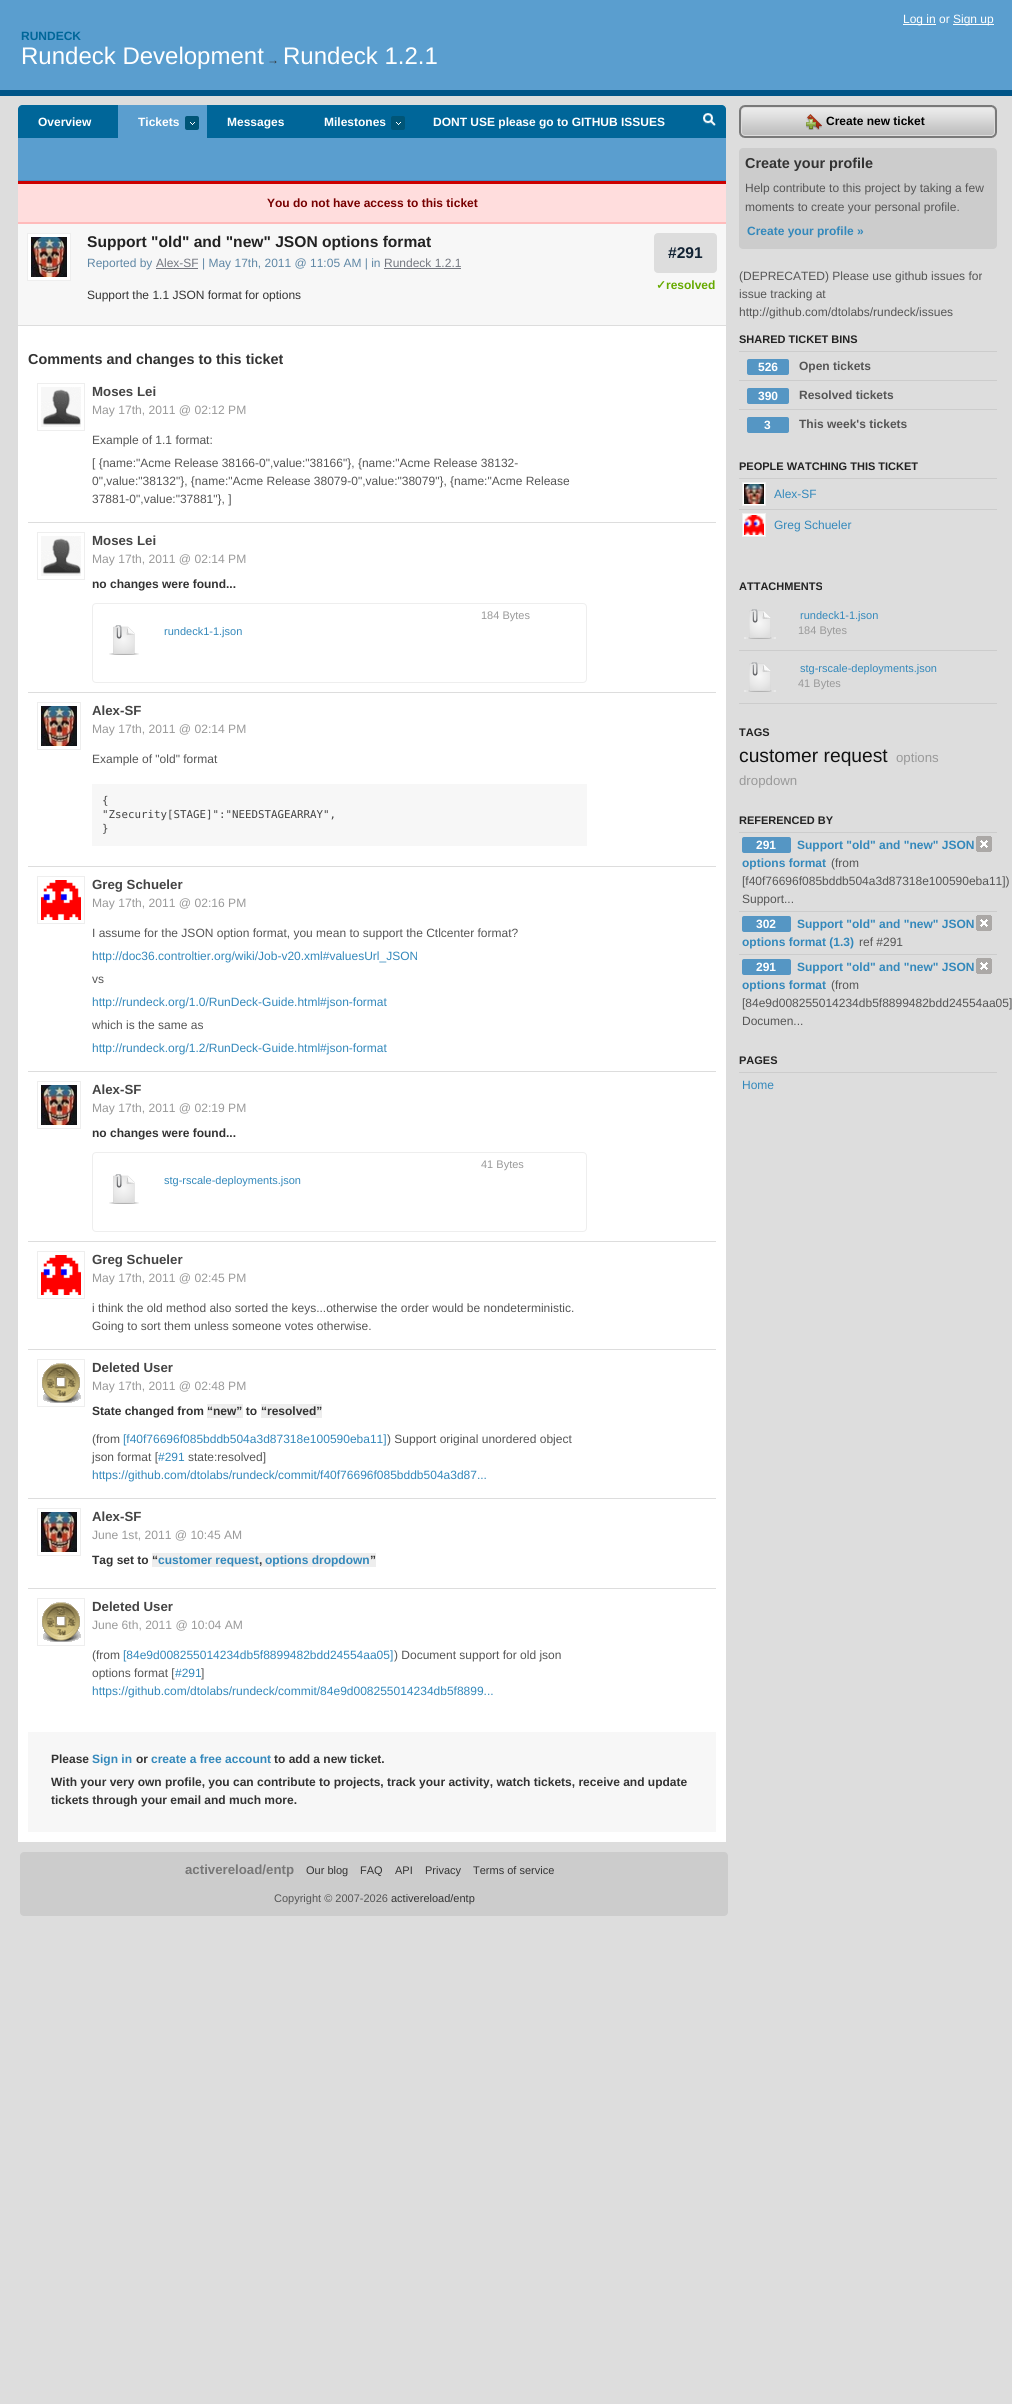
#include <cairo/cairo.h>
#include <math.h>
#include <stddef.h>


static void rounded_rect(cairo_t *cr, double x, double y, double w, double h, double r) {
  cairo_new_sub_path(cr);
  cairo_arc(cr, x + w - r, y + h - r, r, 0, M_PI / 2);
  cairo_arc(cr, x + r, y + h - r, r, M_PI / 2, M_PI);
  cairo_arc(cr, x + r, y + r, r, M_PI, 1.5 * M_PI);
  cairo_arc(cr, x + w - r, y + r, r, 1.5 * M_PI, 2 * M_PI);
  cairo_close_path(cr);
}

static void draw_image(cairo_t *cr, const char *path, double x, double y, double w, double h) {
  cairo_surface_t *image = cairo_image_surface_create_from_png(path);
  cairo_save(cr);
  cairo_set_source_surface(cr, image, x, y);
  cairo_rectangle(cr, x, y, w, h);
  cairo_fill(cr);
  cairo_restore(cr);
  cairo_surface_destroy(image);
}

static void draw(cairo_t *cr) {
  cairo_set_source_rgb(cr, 221 / 255.0, 221 / 255.0, 221 / 255.0);
  cairo_paint(cr);
  cairo_set_source_rgb(cr, 90 / 255.0, 158 / 255.0, 207 / 255.0);
  cairo_rectangle(cr, 0, 0, 1012, 90);
  cairo_fill(cr);
  cairo_set_source_rgb(cr, 0, 85 / 255.0, 136 / 255.0);
  cairo_rectangle(cr, 0, 90, 1012, 6);
  cairo_fill(cr);
  cairo_set_source_rgb(cr, 1, 1, 1);
  cairo_rectangle(cr, 903, 24, 33, 1);
  cairo_fill(cr);
  cairo_rectangle(cr, 953, 24, 41, 1);
  cairo_fill(cr);
  cairo_new_path(cr);
  cairo_move_to(cr, 22, 105);
  cairo_line_to(cr, 722, 105);
  cairo_curve_to(cr, 724, 105, 726, 107, 726, 109);
  cairo_line_to(cr, 726, 1842);
  cairo_line_to(cr, 18, 1842);
  cairo_line_to(cr, 18, 109);
  cairo_curve_to(cr, 18, 107, 20, 105, 22, 105);
  cairo_close_path(cr);
  cairo_fill(cr);
  cairo_set_source_rgb(cr, 0, 102 / 255.0, 153 / 255.0);
  cairo_new_path(cr);
  cairo_move_to(cr, 22, 105);
  cairo_line_to(cr, 722, 105);
  cairo_curve_to(cr, 724, 105, 726, 107, 726, 109);
  cairo_line_to(cr, 726, 138);
  cairo_line_to(cr, 18, 138);
  cairo_line_to(cr, 18, 109);
  cairo_curve_to(cr, 18, 107, 20, 105, 22, 105);
  cairo_close_path(cr);
  cairo_fill(cr);
  cairo_set_source_rgb(cr, 90 / 255.0, 158 / 255.0, 207 / 255.0);
  cairo_rectangle(cr, 118, 105, 89, 33);
  cairo_fill(cr);
  cairo_set_source_rgb(cr, 0, 85 / 255.0, 119 / 255.0);
  rounded_rect(cr, 185, 116, 14, 14, 2);
  cairo_fill(cr);
  draw_image(cr, "images/1.png", 190, 122, 5, 3);
  rounded_rect(cr, 391, 116, 14, 14, 2);
  cairo_fill(cr);
  draw_image(cr, "images/1.png", 396, 122, 5, 3);
  draw_image(cr, "images/2.png", 724, 105, 2, 2);
  draw_image(cr, "images/3.png", 703, 113, 13, 13);
  cairo_set_source_rgb(cr, 90 / 255.0, 158 / 255.0, 207 / 255.0);
  cairo_rectangle(cr, 18, 138, 708, 42);
  cairo_fill(cr);
  cairo_set_source_rgb(cr, 70 / 255.0, 141 / 255.0, 192 / 255.0);
  cairo_rectangle(cr, 18, 180, 708, 1);
  cairo_fill(cr);
  cairo_set_source_rgb(cr, 1, 221 / 255.0, 221 / 255.0);
  cairo_rectangle(cr, 18, 184, 708, 38);
  cairo_fill(cr);
  cairo_set_source_rgb(cr, 204 / 255.0, 0, 0);
  cairo_rectangle(cr, 18, 181, 708, 3);
  cairo_fill(cr);
  cairo_set_source_rgb(cr, 1, 187 / 255.0, 187 / 255.0);
  cairo_rectangle(cr, 18, 222, 708, 2);
  cairo_fill(cr);
  cairo_set_source_rgb(cr, 247 / 255.0, 247 / 255.0, 247 / 255.0);
  cairo_rectangle(cr, 18, 224, 708, 101);
  cairo_fill(cr);
  cairo_set_source_rgb(cr, 221 / 255.0, 221 / 255.0, 221 / 255.0);
  cairo_rectangle(cr, 18, 325, 708, 1);
  cairo_fill(cr);
  cairo_set_source_rgb(cr, 1, 1, 1);
  cairo_rectangle(cr, 27.5, 233.5, 43, 47);
  cairo_fill_preserve(cr);
  cairo_set_source_rgb(cr, 238 / 255.0, 238 / 255.0, 238 / 255.0);
  cairo_set_line_width(cr, 1);
  cairo_stroke(cr);
  draw_image(cr, "images/4.png", 31, 237, 36, 40);
  cairo_set_source_rgb(cr, 116 / 255.0, 119 / 255.0, 128 / 255.0);
  cairo_rectangle(cr, 156, 268, 42, 1);
  cairo_fill(cr);
  cairo_rectangle(cr, 384, 268, 77, 1);
  cairo_fill(cr);
  cairo_set_source_rgb(cr, 221 / 255.0, 221 / 255.0, 221 / 255.0);
  rounded_rect(cr, 654, 233, 63, 40, 4);
  cairo_fill(cr);
  cairo_rectangle(cr, 28, 522, 688, 1);
  cairo_fill(cr);
  cairo_rectangle(cr, 37.5, 383.5, 47, 47);
  cairo_set_source_rgb(cr, 238 / 255.0, 238 / 255.0, 238 / 255.0);
  cairo_stroke(cr);
  draw_image(cr, "images/5.png", 41, 387, 40, 40);
  cairo_set_source_rgb(cr, 221 / 255.0, 221 / 255.0, 221 / 255.0);
  cairo_rectangle(cr, 28, 692, 688, 1);
  cairo_fill(cr);
  cairo_rectangle(cr, 37.5, 532.5, 47, 47);
  cairo_set_source_rgb(cr, 238 / 255.0, 238 / 255.0, 238 / 255.0);
  cairo_stroke(cr);
  draw_image(cr, "images/5.png", 41, 536, 40, 40);
  rounded_rect(cr, 92.5, 603.5, 494, 79, 3.5);
  cairo_stroke(cr);
  draw_image(cr, "images/6.png", 109, 625, 30, 30);
  cairo_set_source_rgb(cr, 221 / 255.0, 221 / 255.0, 221 / 255.0);
  cairo_rectangle(cr, 28, 866, 688, 1);
  cairo_fill(cr);
  cairo_rectangle(cr, 37.5, 702.5, 43, 47);
  cairo_set_source_rgb(cr, 238 / 255.0, 238 / 255.0, 238 / 255.0);
  cairo_stroke(cr);
  draw_image(cr, "images/7.png", 41, 706, 36, 40);
  cairo_set_source_rgb(cr, 247 / 255.0, 247 / 255.0, 247 / 255.0);
  cairo_rectangle(cr, 92, 784, 495, 62);
  cairo_fill(cr);
  cairo_set_source_rgb(cr, 221 / 255.0, 221 / 255.0, 221 / 255.0);
  cairo_rectangle(cr, 28, 1071, 688, 1);
  cairo_fill(cr);
  cairo_rectangle(cr, 37.5, 876.5, 47, 47);
  cairo_set_source_rgb(cr, 238 / 255.0, 238 / 255.0, 238 / 255.0);
  cairo_stroke(cr);
  draw_image(cr, "images/8.png", 41, 880, 40, 40);
  cairo_set_source_rgb(cr, 221 / 255.0, 221 / 255.0, 221 / 255.0);
  cairo_rectangle(cr, 28, 1241, 688, 1);
  cairo_fill(cr);
  cairo_rectangle(cr, 37.5, 1081.5, 43, 47);
  cairo_set_source_rgb(cr, 238 / 255.0, 238 / 255.0, 238 / 255.0);
  cairo_stroke(cr);
  draw_image(cr, "images/7.png", 41, 1085, 36, 40);
  rounded_rect(cr, 92.5, 1152.5, 494, 79, 3.5);
  cairo_stroke(cr);
  draw_image(cr, "images/6.png", 109, 1174, 30, 30);
  cairo_set_source_rgb(cr, 221 / 255.0, 221 / 255.0, 221 / 255.0);
  cairo_rectangle(cr, 28, 1349, 688, 1);
  cairo_fill(cr);
  cairo_rectangle(cr, 37.5, 1251.5, 47, 47);
  cairo_set_source_rgb(cr, 238 / 255.0, 238 / 255.0, 238 / 255.0);
  cairo_stroke(cr);
  draw_image(cr, "images/8.png", 41, 1255, 40, 40);
  cairo_set_source_rgb(cr, 221 / 255.0, 221 / 255.0, 221 / 255.0);
  cairo_rectangle(cr, 28, 1498, 688, 1);
  cairo_fill(cr);
  cairo_rectangle(cr, 37.5, 1359.5, 47, 47);
  cairo_set_source_rgb(cr, 238 / 255.0, 238 / 255.0, 238 / 255.0);
  cairo_stroke(cr);
  draw_image(cr, "images/9.png", 42, 1363, 39, 40);
  cairo_rectangle(cr, 207, 1404, 36, 14);
  cairo_fill(cr);
  cairo_rectangle(cr, 261, 1404, 61, 14);
  cairo_fill(cr);
  cairo_set_source_rgb(cr, 221 / 255.0, 221 / 255.0, 221 / 255.0);
  cairo_rectangle(cr, 28, 1588, 688, 1);
  cairo_fill(cr);
  cairo_rectangle(cr, 37.5, 1508.5, 43, 47);
  cairo_set_source_rgb(cr, 238 / 255.0, 238 / 255.0, 238 / 255.0);
  cairo_stroke(cr);
  draw_image(cr, "images/7.png", 41, 1512, 36, 40);
  cairo_rectangle(cr, 152, 1553, 224, 14);
  cairo_fill(cr);
  cairo_rectangle(cr, 37.5, 1598.5, 47, 47);
  cairo_stroke(cr);
  draw_image(cr, "images/9.png", 42, 1602, 39, 40);
  cairo_set_source_rgb(cr, 247 / 255.0, 247 / 255.0, 247 / 255.0);
  cairo_rectangle(cr, 28, 1732, 688, 100);
  cairo_fill(cr);
  draw_image(cr, "images/10.png", 992, 105, 5, 33);
  draw_image(cr, "images/11.png", 739, 105, 253, 33);
  draw_image(cr, "images/12.png", 806, 114, 16, 16);
  cairo_set_source_rgb(cr, 204 / 255.0, 204 / 255.0, 204 / 255.0);
  rounded_rect(cr, 739, 148, 258, 101, 4);
  cairo_fill(cr);
  cairo_rectangle(cr, 739, 351, 258, 1);
  cairo_fill(cr);
  cairo_set_source_rgb(cr, 85 / 255.0, 150 / 255.0, 196 / 255.0);
  rounded_rect(cr, 747, 359, 42, 16, 2);
  cairo_fill(cr);
  cairo_set_source_rgb(cr, 204 / 255.0, 204 / 255.0, 204 / 255.0);
  cairo_rectangle(cr, 739, 380, 258, 1);
  cairo_fill(cr);
  cairo_set_source_rgb(cr, 85 / 255.0, 150 / 255.0, 196 / 255.0);
  rounded_rect(cr, 747, 388, 42, 16, 2);
  cairo_fill(cr);
  cairo_set_source_rgb(cr, 204 / 255.0, 204 / 255.0, 204 / 255.0);
  cairo_rectangle(cr, 739, 409, 258, 1);
  cairo_fill(cr);
  cairo_set_source_rgb(cr, 85 / 255.0, 150 / 255.0, 196 / 255.0);
  rounded_rect(cr, 747, 417, 42, 16, 2);
  cairo_fill(cr);
  cairo_set_source_rgb(cr, 204 / 255.0, 204 / 255.0, 204 / 255.0);
  cairo_rectangle(cr, 739, 478, 258, 1);
  cairo_fill(cr);
  cairo_set_source_rgb(cr, 1, 1, 1);
  cairo_rectangle(cr, 742.5, 482.5, 23, 23);
  cairo_fill_preserve(cr);
  cairo_set_source_rgb(cr, 238 / 255.0, 238 / 255.0, 238 / 255.0);
  cairo_stroke(cr);
  draw_image(cr, "images/13.png", 744, 484, 20, 20);
  cairo_set_source_rgb(cr, 204 / 255.0, 204 / 255.0, 204 / 255.0);
  cairo_rectangle(cr, 739, 509, 258, 1);
  cairo_fill(cr);
  cairo_set_source_rgb(cr, 1, 1, 1);
  cairo_rectangle(cr, 742.5, 513.5, 23, 23);
  cairo_fill_preserve(cr);
  cairo_set_source_rgb(cr, 238 / 255.0, 238 / 255.0, 238 / 255.0);
  cairo_stroke(cr);
  draw_image(cr, "images/14.png", 744, 515, 20, 20);
  cairo_set_source_rgb(cr, 204 / 255.0, 204 / 255.0, 204 / 255.0);
  cairo_rectangle(cr, 739, 650, 258, 1);
  cairo_fill(cr);
  draw_image(cr, "images/15.png", 744, 609, 32, 30);
  cairo_rectangle(cr, 739, 703, 258, 1);
  cairo_fill(cr);
  draw_image(cr, "images/15.png", 744, 662, 32, 30);
  cairo_rectangle(cr, 739, 832, 258, 1);
  cairo_fill(cr);
  cairo_set_source_rgb(cr, 85 / 255.0, 150 / 255.0, 196 / 255.0);
  rounded_rect(cr, 742, 837, 49, 16, 2);
  cairo_fill(cr);
  draw_image(cr, "images/16.png", 976, 836, 16, 16);
  cairo_set_source_rgb(cr, 204 / 255.0, 204 / 255.0, 204 / 255.0);
  cairo_rectangle(cr, 739, 911, 258, 1);
  cairo_fill(cr);
  cairo_set_source_rgb(cr, 85 / 255.0, 150 / 255.0, 196 / 255.0);
  rounded_rect(cr, 742, 916, 49, 16, 2);
  cairo_fill(cr);
  draw_image(cr, "images/16.png", 976, 915, 16, 16);
  cairo_set_source_rgb(cr, 204 / 255.0, 204 / 255.0, 204 / 255.0);
  cairo_rectangle(cr, 739, 954, 258, 1);
  cairo_fill(cr);
  cairo_set_source_rgb(cr, 85 / 255.0, 150 / 255.0, 196 / 255.0);
  rounded_rect(cr, 742, 959, 49, 16, 2);
  cairo_fill(cr);
  draw_image(cr, "images/16.png", 976, 958, 16, 16);
  cairo_set_source_rgb(cr, 204 / 255.0, 204 / 255.0, 204 / 255.0);
  cairo_rectangle(cr, 739, 1072, 258, 1);
  cairo_fill(cr);
  rounded_rect(cr, 20, 1852, 708, 64, 4);
  cairo_fill(cr);
  cairo_select_font_face(cr, "Liberation Sans", CAIRO_FONT_SLANT_NORMAL, CAIRO_FONT_WEIGHT_NORMAL);
  cairo_set_font_size(cr, 12);
  cairo_set_source_rgb(cr, 1, 1, 1);
  cairo_move_to(cr, 903, 23);
  cairo_show_text(cr, "Log in or");
  cairo_move_to(cr, 953, 23);
  cairo_show_text(cr, "Sign up");
  cairo_select_font_face(cr, "Liberation Sans", CAIRO_FONT_SLANT_NORMAL, CAIRO_FONT_WEIGHT_BOLD);
  cairo_set_source_rgb(cr, 0, 102 / 255.0, 153 / 255.0);
  cairo_move_to(cr, 21, 40);
  cairo_show_text(cr, "RUNDECK");
  cairo_select_font_face(cr, "Liberation Sans", CAIRO_FONT_SLANT_NORMAL, CAIRO_FONT_WEIGHT_NORMAL);
  cairo_set_font_size(cr, 24);
  cairo_set_source_rgb(cr, 1, 1, 1);
  cairo_move_to(cr, 21, 64);
  cairo_show_text(cr, "Rundeck Development");
  cairo_select_font_face(cr, "Liberation Sans", CAIRO_FONT_SLANT_NORMAL, CAIRO_FONT_WEIGHT_BOLD);
  cairo_set_font_size(cr, 12);
  cairo_set_source_rgb(cr, 51 / 255.0, 51 / 255.0, 51 / 255.0);
  cairo_move_to(cr, 267, 64);
  cairo_show_text(cr, "→");
  cairo_select_font_face(cr, "Liberation Sans", CAIRO_FONT_SLANT_NORMAL, CAIRO_FONT_WEIGHT_NORMAL);
  cairo_set_font_size(cr, 24);
  cairo_set_source_rgb(cr, 1, 1, 1);
  cairo_move_to(cr, 283, 64);
  cairo_show_text(cr, "Rundeck 1.2.1");
  cairo_select_font_face(cr, "Liberation Sans", CAIRO_FONT_SLANT_NORMAL, CAIRO_FONT_WEIGHT_BOLD);
  cairo_set_font_size(cr, 12);
  cairo_move_to(cr, 38, 126);
  cairo_show_text(cr, "Overview");
  cairo_move_to(cr, 138, 126);
  cairo_show_text(cr, "Tickets");
  cairo_move_to(cr, 227, 126);
  cairo_show_text(cr, "Messages");
  cairo_move_to(cr, 324, 126);
  cairo_show_text(cr, "Milestones");
  cairo_move_to(cr, 433, 126);
  cairo_show_text(cr, "DONT USE please go to GITHUB ISSUES");
  cairo_set_source_rgb(cr, 119 / 255.0, 0, 0);
  cairo_move_to(cr, 267, 207);
  cairo_show_text(cr, "You do not have access to this ticket");
  cairo_set_font_size(cr, 15.6);
  cairo_set_source_rgb(cr, 34 / 255.0, 34 / 255.0, 34 / 255.0);
  cairo_move_to(cr, 87, 247);
  cairo_show_text(cr, "Support \"old\" and \"new\" JSON options format");
  cairo_select_font_face(cr, "Liberation Sans", CAIRO_FONT_SLANT_NORMAL, CAIRO_FONT_WEIGHT_NORMAL);
  cairo_set_font_size(cr, 12);
  cairo_set_source_rgb(cr, 95 / 255.0, 135 / 255.0, 165 / 255.0);
  cairo_move_to(cr, 87, 267);
  cairo_show_text(cr, "Reported by");
  cairo_set_source_rgb(cr, 116 / 255.0, 119 / 255.0, 128 / 255.0);
  cairo_move_to(cr, 156, 267);
  cairo_show_text(cr, "Alex-SF");
  cairo_set_source_rgb(cr, 95 / 255.0, 135 / 255.0, 165 / 255.0);
  cairo_move_to(cr, 202, 267);
  cairo_show_text(cr, "| May 17th, 2011 @ 11:05 AM | in");
  cairo_set_source_rgb(cr, 116 / 255.0, 119 / 255.0, 128 / 255.0);
  cairo_move_to(cr, 384, 267);
  cairo_show_text(cr, "Rundeck 1.2.1");
  cairo_set_source_rgb(cr, 51 / 255.0, 51 / 255.0, 51 / 255.0);
  cairo_move_to(cr, 87, 299);
  cairo_show_text(cr, "Support the 1.1 JSON format for options");
  cairo_select_font_face(cr, "Liberation Sans", CAIRO_FONT_SLANT_NORMAL, CAIRO_FONT_WEIGHT_BOLD);
  cairo_set_font_size(cr, 15.6);
  cairo_set_source_rgb(cr, 17 / 255.0, 34 / 255.0, 51 / 255.0);
  cairo_move_to(cr, 668, 258);
  cairo_show_text(cr, "#291");
  cairo_select_font_face(cr, "DejaVu Sans", CAIRO_FONT_SLANT_NORMAL, CAIRO_FONT_WEIGHT_BOLD);
  cairo_set_font_size(cr, 12);
  cairo_set_source_rgb(cr, 102 / 255.0, 170 / 255.0, 0);
  cairo_move_to(cr, 656, 289);
  cairo_show_text(cr, "✓");
  cairo_select_font_face(cr, "Liberation Sans", CAIRO_FONT_SLANT_NORMAL, CAIRO_FONT_WEIGHT_BOLD);
  cairo_move_to(cr, 666, 289);
  cairo_show_text(cr, "resolved");
  cairo_set_font_size(cr, 14.4);
  cairo_set_source_rgb(cr, 51 / 255.0, 51 / 255.0, 51 / 255.0);
  cairo_move_to(cr, 28, 364);
  cairo_show_text(cr, "Comments and changes to this ticket");
  cairo_set_font_size(cr, 13.25);
  cairo_set_source_rgb(cr, 68 / 255.0, 68 / 255.0, 68 / 255.0);
  cairo_move_to(cr, 92, 396);
  cairo_show_text(cr, "Moses Lei");
  cairo_select_font_face(cr, "Liberation Sans", CAIRO_FONT_SLANT_NORMAL, CAIRO_FONT_WEIGHT_NORMAL);
  cairo_set_font_size(cr, 12.1);
  cairo_set_source_rgb(cr, 153 / 255.0, 153 / 255.0, 153 / 255.0);
  cairo_move_to(cr, 92, 414);
  cairo_show_text(cr, "May 17th, 2011 @ 02:12 PM");
  cairo_set_font_size(cr, 12);
  cairo_set_source_rgb(cr, 85 / 255.0, 85 / 255.0, 85 / 255.0);
  cairo_move_to(cr, 92, 444);
  cairo_show_text(cr, "Example of 1.1 format:");
  cairo_move_to(cr, 92, 467);
  cairo_show_text(cr, "[ {name:\"Acme Release 38166-0\",value:\"38166\"}, {name:\"Acme Release 38132-");
  cairo_move_to(cr, 92, 485);
  cairo_show_text(cr, "0\",value:\"38132\"}, {name:\"Acme Release 38079-0\",value:\"38079\"}, {name:\"Acme Release");
  cairo_move_to(cr, 92, 503);
  cairo_show_text(cr, "37881-0\",value:\"37881\"}, ]");
  cairo_select_font_face(cr, "Liberation Sans", CAIRO_FONT_SLANT_NORMAL, CAIRO_FONT_WEIGHT_BOLD);
  cairo_set_font_size(cr, 13.25);
  cairo_set_source_rgb(cr, 68 / 255.0, 68 / 255.0, 68 / 255.0);
  cairo_move_to(cr, 92, 545);
  cairo_show_text(cr, "Moses Lei");
  cairo_select_font_face(cr, "Liberation Sans", CAIRO_FONT_SLANT_NORMAL, CAIRO_FONT_WEIGHT_NORMAL);
  cairo_set_font_size(cr, 12.1);
  cairo_set_source_rgb(cr, 153 / 255.0, 153 / 255.0, 153 / 255.0);
  cairo_move_to(cr, 92, 563);
  cairo_show_text(cr, "May 17th, 2011 @ 02:14 PM");
  cairo_select_font_face(cr, "Liberation Sans", CAIRO_FONT_SLANT_NORMAL, CAIRO_FONT_WEIGHT_BOLD);
  cairo_set_font_size(cr, 12);
  cairo_set_source_rgb(cr, 51 / 255.0, 51 / 255.0, 51 / 255.0);
  cairo_move_to(cr, 92, 588);
  cairo_show_text(cr, "no changes were found...");
  cairo_select_font_face(cr, "Liberation Sans", CAIRO_FONT_SLANT_NORMAL, CAIRO_FONT_WEIGHT_NORMAL);
  cairo_set_font_size(cr, 11);
  cairo_set_source_rgb(cr, 153 / 255.0, 153 / 255.0, 153 / 255.0);
  cairo_move_to(cr, 481, 619);
  cairo_show_text(cr, "184 Bytes");
  cairo_set_source_rgb(cr, 51 / 255.0, 136 / 255.0, 187 / 255.0);
  cairo_move_to(cr, 164, 635);
  cairo_show_text(cr, "rundeck1-1.json");
  cairo_select_font_face(cr, "Liberation Sans", CAIRO_FONT_SLANT_NORMAL, CAIRO_FONT_WEIGHT_BOLD);
  cairo_set_font_size(cr, 13.25);
  cairo_set_source_rgb(cr, 68 / 255.0, 68 / 255.0, 68 / 255.0);
  cairo_move_to(cr, 92, 715);
  cairo_show_text(cr, "Alex-SF");
  cairo_select_font_face(cr, "Liberation Sans", CAIRO_FONT_SLANT_NORMAL, CAIRO_FONT_WEIGHT_NORMAL);
  cairo_set_font_size(cr, 12.1);
  cairo_set_source_rgb(cr, 153 / 255.0, 153 / 255.0, 153 / 255.0);
  cairo_move_to(cr, 92, 733);
  cairo_show_text(cr, "May 17th, 2011 @ 02:14 PM");
  cairo_set_font_size(cr, 12);
  cairo_set_source_rgb(cr, 85 / 255.0, 85 / 255.0, 85 / 255.0);
  cairo_move_to(cr, 92, 763);
  cairo_show_text(cr, "Example of \"old\" format");
  cairo_select_font_face(cr, "DejaVu Sans Mono", CAIRO_FONT_SLANT_NORMAL, CAIRO_FONT_WEIGHT_NORMAL);
  cairo_set_font_size(cr, 10.8);
  cairo_set_source_rgb(cr, 68 / 255.0, 68 / 255.0, 68 / 255.0);
  cairo_move_to(cr, 102, 804);
  cairo_show_text(cr, "{");
  cairo_move_to(cr, 102, 818);
  cairo_show_text(cr, "\"Zsecurity[STAGE]\":\"NEEDSTAGEARRAY\",");
  cairo_move_to(cr, 102, 832);
  cairo_show_text(cr, "}");
  cairo_select_font_face(cr, "Liberation Sans", CAIRO_FONT_SLANT_NORMAL, CAIRO_FONT_WEIGHT_BOLD);
  cairo_set_font_size(cr, 13.25);
  cairo_move_to(cr, 92, 889);
  cairo_show_text(cr, "Greg Schueler");
  cairo_select_font_face(cr, "Liberation Sans", CAIRO_FONT_SLANT_NORMAL, CAIRO_FONT_WEIGHT_NORMAL);
  cairo_set_font_size(cr, 12.1);
  cairo_set_source_rgb(cr, 153 / 255.0, 153 / 255.0, 153 / 255.0);
  cairo_move_to(cr, 92, 907);
  cairo_show_text(cr, "May 17th, 2011 @ 02:16 PM");
  cairo_set_font_size(cr, 12);
  cairo_set_source_rgb(cr, 85 / 255.0, 85 / 255.0, 85 / 255.0);
  cairo_move_to(cr, 92, 937);
  cairo_show_text(cr, "I assume for the JSON option format, you mean to support the Ctlcenter format?");
  cairo_set_source_rgb(cr, 51 / 255.0, 136 / 255.0, 187 / 255.0);
  cairo_move_to(cr, 92, 960);
  cairo_show_text(cr, "http://doc36.controltier.org/wiki/Job-v20.xml#valuesUrl_JSON");
  cairo_set_source_rgb(cr, 85 / 255.0, 85 / 255.0, 85 / 255.0);
  cairo_move_to(cr, 92, 983);
  cairo_show_text(cr, "vs");
  cairo_set_source_rgb(cr, 51 / 255.0, 136 / 255.0, 187 / 255.0);
  cairo_move_to(cr, 92, 1006);
  cairo_show_text(cr, "http://rundeck.org/1.0/RunDeck-Guide.html#json-format");
  cairo_set_source_rgb(cr, 85 / 255.0, 85 / 255.0, 85 / 255.0);
  cairo_move_to(cr, 92, 1029);
  cairo_show_text(cr, "which is the same as");
  cairo_set_source_rgb(cr, 51 / 255.0, 136 / 255.0, 187 / 255.0);
  cairo_move_to(cr, 92, 1052);
  cairo_show_text(cr, "http://rundeck.org/1.2/RunDeck-Guide.html#json-format");
  cairo_select_font_face(cr, "Liberation Sans", CAIRO_FONT_SLANT_NORMAL, CAIRO_FONT_WEIGHT_BOLD);
  cairo_set_font_size(cr, 13.25);
  cairo_set_source_rgb(cr, 68 / 255.0, 68 / 255.0, 68 / 255.0);
  cairo_move_to(cr, 92, 1094);
  cairo_show_text(cr, "Alex-SF");
  cairo_select_font_face(cr, "Liberation Sans", CAIRO_FONT_SLANT_NORMAL, CAIRO_FONT_WEIGHT_NORMAL);
  cairo_set_font_size(cr, 12.1);
  cairo_set_source_rgb(cr, 153 / 255.0, 153 / 255.0, 153 / 255.0);
  cairo_move_to(cr, 92, 1112);
  cairo_show_text(cr, "May 17th, 2011 @ 02:19 PM");
  cairo_select_font_face(cr, "Liberation Sans", CAIRO_FONT_SLANT_NORMAL, CAIRO_FONT_WEIGHT_BOLD);
  cairo_set_font_size(cr, 12);
  cairo_set_source_rgb(cr, 51 / 255.0, 51 / 255.0, 51 / 255.0);
  cairo_move_to(cr, 92, 1137);
  cairo_show_text(cr, "no changes were found...");
  cairo_select_font_face(cr, "Liberation Sans", CAIRO_FONT_SLANT_NORMAL, CAIRO_FONT_WEIGHT_NORMAL);
  cairo_set_font_size(cr, 11);
  cairo_set_source_rgb(cr, 153 / 255.0, 153 / 255.0, 153 / 255.0);
  cairo_move_to(cr, 481, 1168);
  cairo_show_text(cr, "41 Bytes");
  cairo_set_source_rgb(cr, 51 / 255.0, 136 / 255.0, 187 / 255.0);
  cairo_move_to(cr, 164, 1184);
  cairo_show_text(cr, "stg-rscale-deployments.json");
  cairo_select_font_face(cr, "Liberation Sans", CAIRO_FONT_SLANT_NORMAL, CAIRO_FONT_WEIGHT_BOLD);
  cairo_set_font_size(cr, 13.25);
  cairo_set_source_rgb(cr, 68 / 255.0, 68 / 255.0, 68 / 255.0);
  cairo_move_to(cr, 92, 1264);
  cairo_show_text(cr, "Greg Schueler");
  cairo_select_font_face(cr, "Liberation Sans", CAIRO_FONT_SLANT_NORMAL, CAIRO_FONT_WEIGHT_NORMAL);
  cairo_set_font_size(cr, 12.1);
  cairo_set_source_rgb(cr, 153 / 255.0, 153 / 255.0, 153 / 255.0);
  cairo_move_to(cr, 92, 1282);
  cairo_show_text(cr, "May 17th, 2011 @ 02:45 PM");
  cairo_set_font_size(cr, 12);
  cairo_set_source_rgb(cr, 85 / 255.0, 85 / 255.0, 85 / 255.0);
  cairo_move_to(cr, 92, 1312);
  cairo_show_text(cr, "i think the old method also sorted the keys...otherwise the order would be nondeterministic.");
  cairo_move_to(cr, 92, 1330);
  cairo_show_text(cr, "Going to sort them unless someone votes otherwise.");
  cairo_select_font_face(cr, "Liberation Sans", CAIRO_FONT_SLANT_NORMAL, CAIRO_FONT_WEIGHT_BOLD);
  cairo_set_font_size(cr, 13.25);
  cairo_set_source_rgb(cr, 68 / 255.0, 68 / 255.0, 68 / 255.0);
  cairo_move_to(cr, 92, 1372);
  cairo_show_text(cr, "Deleted User");
  cairo_select_font_face(cr, "Liberation Sans", CAIRO_FONT_SLANT_NORMAL, CAIRO_FONT_WEIGHT_NORMAL);
  cairo_set_font_size(cr, 12.1);
  cairo_set_source_rgb(cr, 153 / 255.0, 153 / 255.0, 153 / 255.0);
  cairo_move_to(cr, 92, 1390);
  cairo_show_text(cr, "May 17th, 2011 @ 02:48 PM");
  cairo_select_font_face(cr, "Liberation Sans", CAIRO_FONT_SLANT_NORMAL, CAIRO_FONT_WEIGHT_BOLD);
  cairo_set_font_size(cr, 12);
  cairo_set_source_rgb(cr, 51 / 255.0, 51 / 255.0, 51 / 255.0);
  cairo_move_to(cr, 92, 1415);
  cairo_show_text(cr, "State changed from");
  cairo_move_to(cr, 207, 1415);
  cairo_show_text(cr, "“new” to");
  cairo_move_to(cr, 261, 1415);
  cairo_show_text(cr, "“resolved”");
  cairo_select_font_face(cr, "Liberation Sans", CAIRO_FONT_SLANT_NORMAL, CAIRO_FONT_WEIGHT_NORMAL);
  cairo_set_source_rgb(cr, 85 / 255.0, 85 / 255.0, 85 / 255.0);
  cairo_move_to(cr, 92, 1443);
  cairo_show_text(cr, "(from");
  cairo_set_source_rgb(cr, 51 / 255.0, 136 / 255.0, 187 / 255.0);
  cairo_move_to(cr, 123, 1443);
  cairo_show_text(cr, "[f40f76696f085bddb504a3d87318e100590eba11]");
  cairo_set_source_rgb(cr, 85 / 255.0, 85 / 255.0, 85 / 255.0);
  cairo_move_to(cr, 387, 1443);
  cairo_show_text(cr, ") Support original unordered object");
  cairo_move_to(cr, 92, 1461);
  cairo_show_text(cr, "json format [");
  cairo_set_source_rgb(cr, 51 / 255.0, 136 / 255.0, 187 / 255.0);
  cairo_move_to(cr, 158, 1461);
  cairo_show_text(cr, "#291");
  cairo_set_source_rgb(cr, 85 / 255.0, 85 / 255.0, 85 / 255.0);
  cairo_move_to(cr, 188, 1461);
  cairo_show_text(cr, "state:resolved]");
  cairo_set_source_rgb(cr, 51 / 255.0, 136 / 255.0, 187 / 255.0);
  cairo_move_to(cr, 92, 1479);
  cairo_show_text(cr, "https://github.com/dtolabs/rundeck/commit/f40f76696f085bddb504a3d87...");
  cairo_select_font_face(cr, "Liberation Sans", CAIRO_FONT_SLANT_NORMAL, CAIRO_FONT_WEIGHT_BOLD);
  cairo_set_font_size(cr, 13.25);
  cairo_set_source_rgb(cr, 68 / 255.0, 68 / 255.0, 68 / 255.0);
  cairo_move_to(cr, 92, 1521);
  cairo_show_text(cr, "Alex-SF");
  cairo_select_font_face(cr, "Liberation Sans", CAIRO_FONT_SLANT_NORMAL, CAIRO_FONT_WEIGHT_NORMAL);
  cairo_set_font_size(cr, 12.1);
  cairo_set_source_rgb(cr, 153 / 255.0, 153 / 255.0, 153 / 255.0);
  cairo_move_to(cr, 92, 1539);
  cairo_show_text(cr, "June 1st, 2011 @ 10:45 AM");
  cairo_select_font_face(cr, "Liberation Sans", CAIRO_FONT_SLANT_NORMAL, CAIRO_FONT_WEIGHT_BOLD);
  cairo_set_font_size(cr, 12);
  cairo_set_source_rgb(cr, 51 / 255.0, 51 / 255.0, 51 / 255.0);
  cairo_move_to(cr, 92, 1564);
  cairo_show_text(cr, "Tag set to");
  cairo_move_to(cr, 152, 1564);
  cairo_show_text(cr, "“");
  cairo_set_source_rgb(cr, 51 / 255.0, 136 / 255.0, 187 / 255.0);
  cairo_move_to(cr, 158, 1564);
  cairo_show_text(cr, "customer request");
  cairo_set_source_rgb(cr, 51 / 255.0, 51 / 255.0, 51 / 255.0);
  cairo_move_to(cr, 259, 1564);
  cairo_show_text(cr, ",");
  cairo_set_source_rgb(cr, 51 / 255.0, 136 / 255.0, 187 / 255.0);
  cairo_move_to(cr, 265, 1564);
  cairo_show_text(cr, "options dropdown");
  cairo_set_source_rgb(cr, 51 / 255.0, 51 / 255.0, 51 / 255.0);
  cairo_move_to(cr, 370, 1564);
  cairo_show_text(cr, "”");
  cairo_set_font_size(cr, 13.25);
  cairo_set_source_rgb(cr, 68 / 255.0, 68 / 255.0, 68 / 255.0);
  cairo_move_to(cr, 92, 1611);
  cairo_show_text(cr, "Deleted User");
  cairo_select_font_face(cr, "Liberation Sans", CAIRO_FONT_SLANT_NORMAL, CAIRO_FONT_WEIGHT_NORMAL);
  cairo_set_font_size(cr, 12.1);
  cairo_set_source_rgb(cr, 153 / 255.0, 153 / 255.0, 153 / 255.0);
  cairo_move_to(cr, 92, 1629);
  cairo_show_text(cr, "June 6th, 2011 @ 10:04 AM");
  cairo_set_font_size(cr, 12);
  cairo_set_source_rgb(cr, 85 / 255.0, 85 / 255.0, 85 / 255.0);
  cairo_move_to(cr, 92, 1659);
  cairo_show_text(cr, "(from");
  cairo_set_source_rgb(cr, 51 / 255.0, 136 / 255.0, 187 / 255.0);
  cairo_move_to(cr, 123, 1659);
  cairo_show_text(cr, "[84e9d008255014234db5f8899482bdd24554aa05]");
  cairo_set_source_rgb(cr, 85 / 255.0, 85 / 255.0, 85 / 255.0);
  cairo_move_to(cr, 394, 1659);
  cairo_show_text(cr, ") Document support for old json");
  cairo_move_to(cr, 92, 1677);
  cairo_show_text(cr, "options format [");
  cairo_set_source_rgb(cr, 51 / 255.0, 136 / 255.0, 187 / 255.0);
  cairo_move_to(cr, 175, 1677);
  cairo_show_text(cr, "#291");
  cairo_set_source_rgb(cr, 85 / 255.0, 85 / 255.0, 85 / 255.0);
  cairo_move_to(cr, 201, 1677);
  cairo_show_text(cr, "]");
  cairo_set_source_rgb(cr, 51 / 255.0, 136 / 255.0, 187 / 255.0);
  cairo_move_to(cr, 92, 1695);
  cairo_show_text(cr, "https://github.com/dtolabs/rundeck/commit/84e9d008255014234db5f8899...");
  cairo_select_font_face(cr, "Liberation Sans", CAIRO_FONT_SLANT_NORMAL, CAIRO_FONT_WEIGHT_BOLD);
  cairo_set_source_rgb(cr, 51 / 255.0, 51 / 255.0, 51 / 255.0);
  cairo_move_to(cr, 51, 1763);
  cairo_show_text(cr, "Please");
  cairo_set_source_rgb(cr, 51 / 255.0, 136 / 255.0, 187 / 255.0);
  cairo_move_to(cr, 92, 1763);
  cairo_show_text(cr, "Sign in");
  cairo_set_source_rgb(cr, 51 / 255.0, 51 / 255.0, 51 / 255.0);
  cairo_move_to(cr, 136, 1763);
  cairo_show_text(cr, "or");
  cairo_set_source_rgb(cr, 51 / 255.0, 136 / 255.0, 187 / 255.0);
  cairo_move_to(cr, 151, 1763);
  cairo_show_text(cr, "create a free account");
  cairo_set_source_rgb(cr, 51 / 255.0, 51 / 255.0, 51 / 255.0);
  cairo_move_to(cr, 274, 1763);
  cairo_show_text(cr, "to add a new ticket.");
  cairo_move_to(cr, 51, 1786);
  cairo_show_text(cr, "With your very own profile, you can contribute to projects, track your activity, watch tickets, receive and update");
  cairo_move_to(cr, 51, 1804);
  cairo_show_text(cr, "tickets through your email and much more.");
  cairo_set_source_rgb(cr, 0, 0, 0);
  cairo_move_to(cr, 826, 125);
  cairo_show_text(cr, "Create new ticket");
  cairo_set_font_size(cr, 14.4);
  cairo_set_source_rgb(cr, 51 / 255.0, 51 / 255.0, 51 / 255.0);
  cairo_move_to(cr, 745, 168);
  cairo_show_text(cr, "Create your profile");
  cairo_select_font_face(cr, "Liberation Sans", CAIRO_FONT_SLANT_NORMAL, CAIRO_FONT_WEIGHT_NORMAL);
  cairo_set_font_size(cr, 12);
  cairo_set_source_rgb(cr, 85 / 255.0, 85 / 255.0, 85 / 255.0);
  cairo_move_to(cr, 745, 192);
  cairo_show_text(cr, "Help contribute to this project by taking a few");
  cairo_move_to(cr, 745, 211);
  cairo_show_text(cr, "moments to create your personal profile.");
  cairo_select_font_face(cr, "Liberation Sans", CAIRO_FONT_SLANT_NORMAL, CAIRO_FONT_WEIGHT_BOLD);
  cairo_set_source_rgb(cr, 51 / 255.0, 136 / 255.0, 187 / 255.0);
  cairo_move_to(cr, 747, 235);
  cairo_show_text(cr, "Create your profile »");
  cairo_select_font_face(cr, "Liberation Sans", CAIRO_FONT_SLANT_NORMAL, CAIRO_FONT_WEIGHT_NORMAL);
  cairo_set_source_rgb(cr, 85 / 255.0, 85 / 255.0, 85 / 255.0);
  cairo_move_to(cr, 739, 280);
  cairo_show_text(cr, "(DEPRECATED) Please use github issues for");
  cairo_move_to(cr, 739, 298);
  cairo_show_text(cr, "issue tracking at");
  cairo_move_to(cr, 739, 316);
  cairo_show_text(cr, "http://github.com/dtolabs/rundeck/issues");
  cairo_select_font_face(cr, "Liberation Sans", CAIRO_FONT_SLANT_NORMAL, CAIRO_FONT_WEIGHT_BOLD);
  cairo_set_font_size(cr, 11);
  cairo_set_source_rgb(cr, 34 / 255.0, 34 / 255.0, 34 / 255.0);
  cairo_move_to(cr, 739, 343);
  cairo_show_text(cr, "SHARED TICKET BINS");
  cairo_set_font_size(cr, 12);
  cairo_set_source_rgb(cr, 1, 1, 1);
  cairo_move_to(cr, 758, 371);
  cairo_show_text(cr, "526");
  cairo_set_source_rgb(cr, 85 / 255.0, 85 / 255.0, 85 / 255.0);
  cairo_move_to(cr, 799, 370);
  cairo_show_text(cr, "Open tickets");
  cairo_set_source_rgb(cr, 1, 1, 1);
  cairo_move_to(cr, 758, 400);
  cairo_show_text(cr, "390");
  cairo_set_source_rgb(cr, 85 / 255.0, 85 / 255.0, 85 / 255.0);
  cairo_move_to(cr, 799, 399);
  cairo_show_text(cr, "Resolved tickets");
  cairo_set_source_rgb(cr, 1, 1, 1);
  cairo_move_to(cr, 764, 429);
  cairo_show_text(cr, "3");
  cairo_set_source_rgb(cr, 85 / 255.0, 85 / 255.0, 85 / 255.0);
  cairo_move_to(cr, 799, 428);
  cairo_show_text(cr, "This week's tickets");
  cairo_set_font_size(cr, 11);
  cairo_set_source_rgb(cr, 34 / 255.0, 34 / 255.0, 34 / 255.0);
  cairo_move_to(cr, 739, 470);
  cairo_show_text(cr, "PEOPLE WATCHING THIS TICKET");
  cairo_select_font_face(cr, "Liberation Sans", CAIRO_FONT_SLANT_NORMAL, CAIRO_FONT_WEIGHT_NORMAL);
  cairo_set_font_size(cr, 12);
  cairo_set_source_rgb(cr, 51 / 255.0, 136 / 255.0, 187 / 255.0);
  cairo_move_to(cr, 774, 498);
  cairo_show_text(cr, "Alex-SF");
  cairo_move_to(cr, 774, 529);
  cairo_show_text(cr, "Greg Schueler");
  cairo_select_font_face(cr, "Liberation Sans", CAIRO_FONT_SLANT_NORMAL, CAIRO_FONT_WEIGHT_BOLD);
  cairo_set_font_size(cr, 11);
  cairo_set_source_rgb(cr, 34 / 255.0, 34 / 255.0, 34 / 255.0);
  cairo_move_to(cr, 739, 590);
  cairo_show_text(cr, "ATTACHMENTS");
  cairo_select_font_face(cr, "Liberation Sans", CAIRO_FONT_SLANT_NORMAL, CAIRO_FONT_WEIGHT_NORMAL);
  cairo_set_source_rgb(cr, 51 / 255.0, 136 / 255.0, 187 / 255.0);
  cairo_move_to(cr, 800, 619);
  cairo_show_text(cr, "rundeck1-1.json");
  cairo_set_source_rgb(cr, 153 / 255.0, 153 / 255.0, 153 / 255.0);
  cairo_move_to(cr, 798, 634);
  cairo_show_text(cr, "184 Bytes");
  cairo_set_source_rgb(cr, 51 / 255.0, 136 / 255.0, 187 / 255.0);
  cairo_move_to(cr, 800, 672);
  cairo_show_text(cr, "stg-rscale-deployments.json");
  cairo_set_source_rgb(cr, 153 / 255.0, 153 / 255.0, 153 / 255.0);
  cairo_move_to(cr, 798, 687);
  cairo_show_text(cr, "41 Bytes");
  cairo_select_font_face(cr, "Liberation Sans", CAIRO_FONT_SLANT_NORMAL, CAIRO_FONT_WEIGHT_BOLD);
  cairo_set_source_rgb(cr, 34 / 255.0, 34 / 255.0, 34 / 255.0);
  cairo_move_to(cr, 739, 736);
  cairo_show_text(cr, "TAGS");
  cairo_select_font_face(cr, "Liberation Sans", CAIRO_FONT_SLANT_NORMAL, CAIRO_FONT_WEIGHT_NORMAL);
  cairo_set_font_size(cr, 19.25);
  cairo_set_source_rgb(cr, 17 / 255.0, 17 / 255.0, 17 / 255.0);
  cairo_move_to(cr, 739, 762);
  cairo_show_text(cr, "customer request");
  cairo_set_font_size(cr, 13.25);
  cairo_set_source_rgb(cr, 153 / 255.0, 153 / 255.0, 153 / 255.0);
  cairo_move_to(cr, 896, 762);
  cairo_show_text(cr, "options");
  cairo_move_to(cr, 739, 785);
  cairo_show_text(cr, "dropdown");
  cairo_select_font_face(cr, "Liberation Sans", CAIRO_FONT_SLANT_NORMAL, CAIRO_FONT_WEIGHT_BOLD);
  cairo_set_font_size(cr, 11);
  cairo_set_source_rgb(cr, 34 / 255.0, 34 / 255.0, 34 / 255.0);
  cairo_move_to(cr, 739, 824);
  cairo_show_text(cr, "REFERENCED BY");
  cairo_set_font_size(cr, 12);
  cairo_set_source_rgb(cr, 1, 1, 1);
  cairo_move_to(cr, 756, 849);
  cairo_show_text(cr, "291");
  cairo_set_source_rgb(cr, 51 / 255.0, 136 / 255.0, 187 / 255.0);
  cairo_move_to(cr, 797, 849);
  cairo_show_text(cr, "Support \"old\" and \"new\" JSON");
  cairo_move_to(cr, 742, 867);
  cairo_show_text(cr, "options format");
  cairo_select_font_face(cr, "Liberation Sans", CAIRO_FONT_SLANT_NORMAL, CAIRO_FONT_WEIGHT_NORMAL);
  cairo_set_source_rgb(cr, 85 / 255.0, 85 / 255.0, 85 / 255.0);
  cairo_move_to(cr, 831, 867);
  cairo_show_text(cr, "(from");
  cairo_move_to(cr, 742, 885);
  cairo_show_text(cr, "[f40f76696f085bddb504a3d87318e100590eba11])");
  cairo_move_to(cr, 742, 903);
  cairo_show_text(cr, "Support...");
  cairo_select_font_face(cr, "Liberation Sans", CAIRO_FONT_SLANT_NORMAL, CAIRO_FONT_WEIGHT_BOLD);
  cairo_set_source_rgb(cr, 1, 1, 1);
  cairo_move_to(cr, 756, 928);
  cairo_show_text(cr, "302");
  cairo_set_source_rgb(cr, 51 / 255.0, 136 / 255.0, 187 / 255.0);
  cairo_move_to(cr, 797, 928);
  cairo_show_text(cr, "Support \"old\" and \"new\" JSON");
  cairo_move_to(cr, 742, 946);
  cairo_show_text(cr, "options format (1.3)");
  cairo_select_font_face(cr, "Liberation Sans", CAIRO_FONT_SLANT_NORMAL, CAIRO_FONT_WEIGHT_NORMAL);
  cairo_set_source_rgb(cr, 85 / 255.0, 85 / 255.0, 85 / 255.0);
  cairo_move_to(cr, 859, 946);
  cairo_show_text(cr, "ref #291");
  cairo_select_font_face(cr, "Liberation Sans", CAIRO_FONT_SLANT_NORMAL, CAIRO_FONT_WEIGHT_BOLD);
  cairo_set_source_rgb(cr, 1, 1, 1);
  cairo_move_to(cr, 756, 971);
  cairo_show_text(cr, "291");
  cairo_set_source_rgb(cr, 51 / 255.0, 136 / 255.0, 187 / 255.0);
  cairo_move_to(cr, 797, 971);
  cairo_show_text(cr, "Support \"old\" and \"new\" JSON");
  cairo_move_to(cr, 742, 989);
  cairo_show_text(cr, "options format");
  cairo_select_font_face(cr, "Liberation Sans", CAIRO_FONT_SLANT_NORMAL, CAIRO_FONT_WEIGHT_NORMAL);
  cairo_set_source_rgb(cr, 85 / 255.0, 85 / 255.0, 85 / 255.0);
  cairo_move_to(cr, 831, 989);
  cairo_show_text(cr, "(from");
  cairo_move_to(cr, 742, 1007);
  cairo_show_text(cr, "[84e9d008255014234db5f8899482bdd24554aa05]");
  cairo_move_to(cr, 742, 1025);
  cairo_show_text(cr, "Documen...");
  cairo_select_font_face(cr, "Liberation Sans", CAIRO_FONT_SLANT_NORMAL, CAIRO_FONT_WEIGHT_BOLD);
  cairo_set_font_size(cr, 11);
  cairo_set_source_rgb(cr, 34 / 255.0, 34 / 255.0, 34 / 255.0);
  cairo_move_to(cr, 739, 1064);
  cairo_show_text(cr, "PAGES");
  cairo_select_font_face(cr, "Liberation Sans", CAIRO_FONT_SLANT_NORMAL, CAIRO_FONT_WEIGHT_NORMAL);
  cairo_set_font_size(cr, 12);
  cairo_set_source_rgb(cr, 51 / 255.0, 136 / 255.0, 187 / 255.0);
  cairo_move_to(cr, 742, 1089);
  cairo_show_text(cr, "Home");
  cairo_select_font_face(cr, "Liberation Sans", CAIRO_FONT_SLANT_NORMAL, CAIRO_FONT_WEIGHT_BOLD);
  cairo_set_font_size(cr, 13.25);
  cairo_set_source_rgb(cr, 119 / 255.0, 119 / 255.0, 119 / 255.0);
  cairo_move_to(cr, 185, 1874);
  cairo_show_text(cr, "activereload/entp");
  cairo_select_font_face(cr, "Liberation Sans", CAIRO_FONT_SLANT_NORMAL, CAIRO_FONT_WEIGHT_NORMAL);
  cairo_set_font_size(cr, 11);
  cairo_set_source_rgb(cr, 51 / 255.0, 51 / 255.0, 51 / 255.0);
  cairo_move_to(cr, 306, 1874);
  cairo_show_text(cr, "Our blog");
  cairo_move_to(cr, 360, 1874);
  cairo_show_text(cr, "FAQ");
  cairo_move_to(cr, 395, 1874);
  cairo_show_text(cr, "API");
  cairo_move_to(cr, 425, 1874);
  cairo_show_text(cr, "Privacy");
  cairo_move_to(cr, 473, 1874);
  cairo_show_text(cr, "Terms of service");
  cairo_set_source_rgb(cr, 85 / 255.0, 85 / 255.0, 85 / 255.0);
  cairo_move_to(cr, 274, 1902);
  cairo_show_text(cr, "Copyright © 2007-2026");
  cairo_set_source_rgb(cr, 51 / 255.0, 51 / 255.0, 51 / 255.0);
  cairo_move_to(cr, 391, 1902);
  cairo_show_text(cr, "activereload/entp");
}

int main(void) {
  cairo_surface_t *surface = cairo_image_surface_create(CAIRO_FORMAT_RGB24, 1012, 2404);
  cairo_t *cr = cairo_create(surface);
  cairo_font_options_t *options = cairo_font_options_create();
  cairo_font_options_set_hint_metrics(options, CAIRO_HINT_METRICS_OFF);
  cairo_font_options_set_hint_style(options, CAIRO_HINT_STYLE_NONE);
  cairo_set_font_options(cr, options);
  cairo_set_miter_limit(cr, 4);
  draw(cr);
  cairo_surface_write_to_png(surface, "out.png");
  cairo_font_options_destroy(options);
  cairo_destroy(cr);
  cairo_surface_destroy(surface);
  return 0;
}
